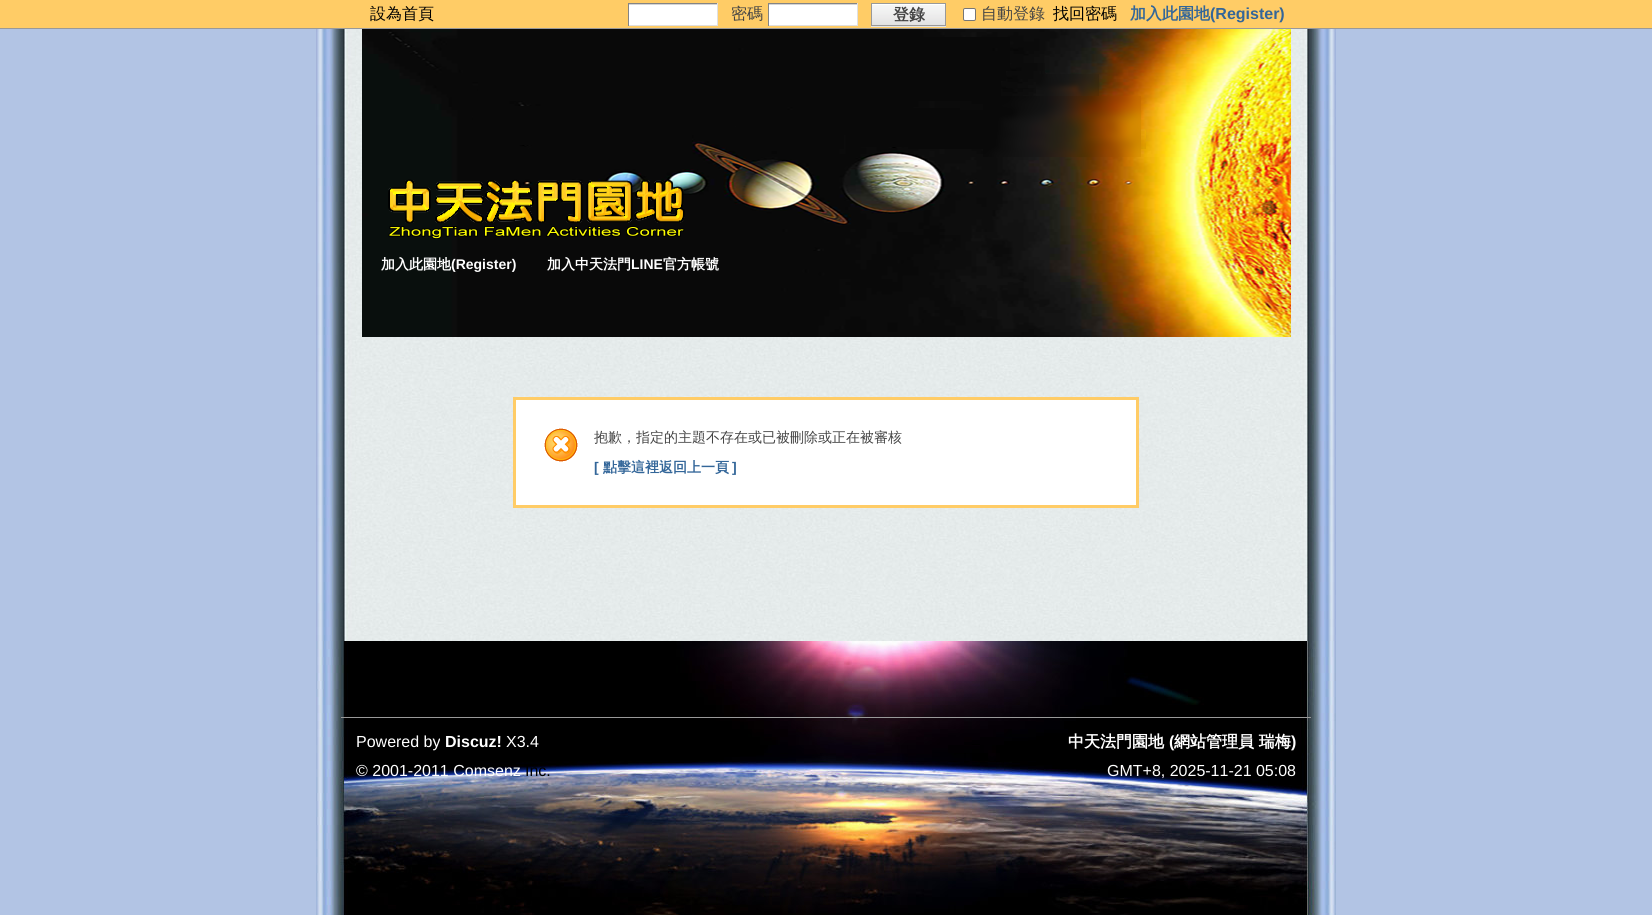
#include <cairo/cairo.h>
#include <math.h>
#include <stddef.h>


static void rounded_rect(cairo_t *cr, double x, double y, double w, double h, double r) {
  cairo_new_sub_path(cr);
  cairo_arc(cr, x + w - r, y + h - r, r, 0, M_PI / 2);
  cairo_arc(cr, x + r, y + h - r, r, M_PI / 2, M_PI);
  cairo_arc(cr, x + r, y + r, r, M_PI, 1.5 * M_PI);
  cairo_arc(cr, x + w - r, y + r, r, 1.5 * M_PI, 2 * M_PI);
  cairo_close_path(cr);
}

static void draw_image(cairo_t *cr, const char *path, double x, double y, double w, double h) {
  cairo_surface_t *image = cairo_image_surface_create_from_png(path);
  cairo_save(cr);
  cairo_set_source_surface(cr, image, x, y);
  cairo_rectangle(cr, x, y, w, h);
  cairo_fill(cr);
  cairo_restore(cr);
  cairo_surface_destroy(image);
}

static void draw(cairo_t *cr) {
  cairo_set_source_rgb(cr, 178 / 255.0, 196 / 255.0, 228 / 255.0);
  cairo_paint(cr);
  draw_image(cr, "images/1.png", 316, 29, 1020, 612);
  draw_image(cr, "images/2.png", 316, 641, 1020, 274);
  cairo_set_source_rgb(cr, 1, 204 / 255.0, 102 / 255.0);
  cairo_rectangle(cr, 0, 0, 1652, 28);
  cairo_fill(cr);
  cairo_set_source_rgb(cr, 153 / 255.0, 153 / 255.0, 153 / 255.0);
  cairo_rectangle(cr, 0, 28, 1652, 1);
  cairo_fill(cr);
  cairo_set_source_rgb(cr, 1, 1, 1);
  cairo_rectangle(cr, 629, 5, 88, 20);
  cairo_fill(cr);
  cairo_set_source_rgb(cr, 212 / 255.0, 212 / 255.0, 212 / 255.0);
  cairo_rectangle(cr, 628, 4, 90, 1);
  cairo_fill(cr);
  cairo_set_source_rgb(cr, 132 / 255.0, 132 / 255.0, 132 / 255.0);
  cairo_rectangle(cr, 628, 3, 90, 1);
  cairo_fill(cr);
  cairo_set_source_rgb(cr, 224 / 255.0, 224 / 255.0, 224 / 255.0);
  cairo_rectangle(cr, 717, 3, 1, 23);
  cairo_fill(cr);
  cairo_rectangle(cr, 628, 25, 90, 1);
  cairo_fill(cr);
  cairo_set_source_rgb(cr, 132 / 255.0, 132 / 255.0, 132 / 255.0);
  cairo_rectangle(cr, 628, 3, 1, 23);
  cairo_fill(cr);
  cairo_set_source_rgb(cr, 1, 1, 1);
  cairo_rectangle(cr, 769, 5, 88, 20);
  cairo_fill(cr);
  cairo_set_source_rgb(cr, 212 / 255.0, 212 / 255.0, 212 / 255.0);
  cairo_rectangle(cr, 768, 4, 90, 1);
  cairo_fill(cr);
  cairo_set_source_rgb(cr, 132 / 255.0, 132 / 255.0, 132 / 255.0);
  cairo_rectangle(cr, 768, 3, 90, 1);
  cairo_fill(cr);
  cairo_set_source_rgb(cr, 224 / 255.0, 224 / 255.0, 224 / 255.0);
  cairo_rectangle(cr, 857, 3, 1, 23);
  cairo_fill(cr);
  cairo_rectangle(cr, 768, 25, 90, 1);
  cairo_fill(cr);
  cairo_set_source_rgb(cr, 132 / 255.0, 132 / 255.0, 132 / 255.0);
  cairo_rectangle(cr, 768, 3, 1, 23);
  cairo_fill(cr);
  cairo_set_source_rgb(cr, 229 / 255.0, 229 / 255.0, 229 / 255.0);
  cairo_rectangle(cr, 871, 26, 75, 1);
  cairo_fill(cr);
  draw_image(cr, "images/3.png", 872, 4, 73, 21);
  cairo_rectangle(cr, 871.5, 3.5, 74, 22);
  cairo_set_source_rgb(cr, 153 / 255.0, 153 / 255.0, 153 / 255.0);
  cairo_set_line_width(cr, 1);
  cairo_stroke(cr);
  cairo_set_source_rgb(cr, 1, 1, 1);
  rounded_rect(cr, 963.5, 8.5, 12, 12, 1.5);
  cairo_fill_preserve(cr);
  cairo_set_source_rgb(cr, 118 / 255.0, 118 / 255.0, 118 / 255.0);
  cairo_stroke(cr);
  draw_image(cr, "images/4.png", 362, 29, 929, 308);
  draw_image(cr, "images/5.png", 388, 179, 297, 60);
  cairo_set_source_rgb(cr, 1, 1, 1);
  cairo_rectangle(cr, 514.5, 398.5, 623, 108);
  cairo_fill_preserve(cr);
  cairo_set_source_rgb(cr, 1, 204 / 255.0, 102 / 255.0);
  cairo_set_line_width(cr, 3);
  cairo_stroke(cr);
  draw_image(cr, "images/6.png", 544, 428, 34, 34);
  cairo_set_source_rgb(cr, 153 / 255.0, 153 / 255.0, 153 / 255.0);
  cairo_rectangle(cr, 341, 717, 970, 1);
  cairo_fill(cr);
  cairo_select_font_face(cr, "WenQuanYi Zen Hei Medium", CAIRO_FONT_SLANT_NORMAL, CAIRO_FONT_WEIGHT_NORMAL);
  cairo_set_font_size(cr, 16);
  cairo_set_source_rgb(cr, 0, 0, 0);
  cairo_move_to(cr, 370, 19);
  cairo_show_text(cr, "設為首頁");
  cairo_set_source_rgb(cr, 68 / 255.0, 68 / 255.0, 68 / 255.0);
  cairo_move_to(cr, 731, 19);
  cairo_show_text(cr, "密碼");
  cairo_select_font_face(cr, "WenQuanYi Zen Hei", CAIRO_FONT_SLANT_NORMAL, CAIRO_FONT_WEIGHT_BOLD);
  cairo_move_to(cr, 893, 20);
  cairo_show_text(cr, "登錄");
  cairo_select_font_face(cr, "WenQuanYi Zen Hei Medium", CAIRO_FONT_SLANT_NORMAL, CAIRO_FONT_WEIGHT_NORMAL);
  cairo_move_to(cr, 981, 19);
  cairo_show_text(cr, "自動登錄");
  cairo_set_source_rgb(cr, 0, 0, 0);
  cairo_move_to(cr, 1053, 19);
  cairo_show_text(cr, "找回密碼");
  cairo_select_font_face(cr, "WenQuanYi Zen Hei", CAIRO_FONT_SLANT_NORMAL, CAIRO_FONT_WEIGHT_BOLD);
  cairo_set_source_rgb(cr, 51 / 255.0, 102 / 255.0, 153 / 255.0);
  cairo_move_to(cr, 1130, 19);
  cairo_show_text(cr, "加入此園地");
  cairo_select_font_face(cr, "Liberation Sans", CAIRO_FONT_SLANT_NORMAL, CAIRO_FONT_WEIGHT_BOLD);
  cairo_move_to(cr, 1210, 19);
  cairo_show_text(cr, "(Register)");
  cairo_select_font_face(cr, "WenQuanYi Zen Hei", CAIRO_FONT_SLANT_NORMAL, CAIRO_FONT_WEIGHT_BOLD);
  cairo_set_font_size(cr, 14);
  cairo_set_source_rgb(cr, 1, 1, 1);
  cairo_move_to(cr, 381, 269);
  cairo_show_text(cr, "加入此園地");
  cairo_select_font_face(cr, "Liberation Sans", CAIRO_FONT_SLANT_NORMAL, CAIRO_FONT_WEIGHT_BOLD);
  cairo_move_to(cr, 451, 269);
  cairo_show_text(cr, "(Register)");
  cairo_select_font_face(cr, "WenQuanYi Zen Hei", CAIRO_FONT_SLANT_NORMAL, CAIRO_FONT_WEIGHT_BOLD);
  cairo_move_to(cr, 547, 269);
  cairo_show_text(cr, "加入中天法門");
  cairo_select_font_face(cr, "Liberation Sans", CAIRO_FONT_SLANT_NORMAL, CAIRO_FONT_WEIGHT_BOLD);
  cairo_move_to(cr, 631, 269);
  cairo_show_text(cr, "LINE");
  cairo_select_font_face(cr, "WenQuanYi Zen Hei", CAIRO_FONT_SLANT_NORMAL, CAIRO_FONT_WEIGHT_BOLD);
  cairo_move_to(cr, 663, 269);
  cairo_show_text(cr, "官方帳號");
  cairo_select_font_face(cr, "WenQuanYi Zen Hei Medium", CAIRO_FONT_SLANT_NORMAL, CAIRO_FONT_WEIGHT_NORMAL);
  cairo_set_source_rgb(cr, 68 / 255.0, 68 / 255.0, 68 / 255.0);
  cairo_move_to(cr, 594, 442);
  cairo_show_text(cr, "抱歉，指定的主題不存在或已被刪除或正在被審核");
  cairo_select_font_face(cr, "Liberation Sans", CAIRO_FONT_SLANT_NORMAL, CAIRO_FONT_WEIGHT_BOLD);
  cairo_set_source_rgb(cr, 51 / 255.0, 102 / 255.0, 153 / 255.0);
  cairo_move_to(cr, 594, 472);
  cairo_show_text(cr, "[");
  cairo_select_font_face(cr, "WenQuanYi Zen Hei", CAIRO_FONT_SLANT_NORMAL, CAIRO_FONT_WEIGHT_BOLD);
  cairo_move_to(cr, 603, 472);
  cairo_show_text(cr, "點擊這裡返回上一頁");
  cairo_select_font_face(cr, "Liberation Sans", CAIRO_FONT_SLANT_NORMAL, CAIRO_FONT_WEIGHT_BOLD);
  cairo_move_to(cr, 732, 472);
  cairo_show_text(cr, "]");
  cairo_select_font_face(cr, "Liberation Sans", CAIRO_FONT_SLANT_NORMAL, CAIRO_FONT_WEIGHT_NORMAL);
  cairo_set_font_size(cr, 16);
  cairo_set_source_rgb(cr, 1, 1, 1);
  cairo_move_to(cr, 356, 747);
  cairo_show_text(cr, "Powered by");
  cairo_select_font_face(cr, "Liberation Sans", CAIRO_FONT_SLANT_NORMAL, CAIRO_FONT_WEIGHT_BOLD);
  cairo_move_to(cr, 445, 747);
  cairo_show_text(cr, "Discuz!");
  cairo_select_font_face(cr, "Liberation Sans", CAIRO_FONT_SLANT_NORMAL, CAIRO_FONT_WEIGHT_NORMAL);
  cairo_move_to(cr, 506, 747);
  cairo_show_text(cr, "X3.4");
  cairo_move_to(cr, 356, 776);
  cairo_show_text(cr, "© 2001-2011 Comsenz");
  cairo_set_source_rgb(cr, 0, 0, 0);
  cairo_move_to(cr, 525, 776);
  cairo_show_text(cr, "Inc.");
  cairo_select_font_face(cr, "WenQuanYi Zen Hei", CAIRO_FONT_SLANT_NORMAL, CAIRO_FONT_WEIGHT_BOLD);
  cairo_set_source_rgb(cr, 1, 1, 1);
  cairo_move_to(cr, 1068, 747);
  cairo_show_text(cr, "中天法門園地");
  cairo_select_font_face(cr, "Liberation Sans", CAIRO_FONT_SLANT_NORMAL, CAIRO_FONT_WEIGHT_BOLD);
  cairo_move_to(cr, 1169, 747);
  cairo_show_text(cr, "(");
  cairo_select_font_face(cr, "WenQuanYi Zen Hei", CAIRO_FONT_SLANT_NORMAL, CAIRO_FONT_WEIGHT_BOLD);
  cairo_move_to(cr, 1174, 747);
  cairo_show_text(cr, "網站管理員 瑞梅");
  cairo_select_font_face(cr, "Liberation Sans", CAIRO_FONT_SLANT_NORMAL, CAIRO_FONT_WEIGHT_BOLD);
  cairo_move_to(cr, 1291, 747);
  cairo_show_text(cr, ")");
  cairo_select_font_face(cr, "Liberation Sans", CAIRO_FONT_SLANT_NORMAL, CAIRO_FONT_WEIGHT_NORMAL);
  cairo_move_to(cr, 1107, 776);
  cairo_show_text(cr, "GMT+8, 2025-11-21 05:08");
}

int main(void) {
  cairo_surface_t *surface = cairo_image_surface_create(CAIRO_FORMAT_RGB24, 1652, 915);
  cairo_t *cr = cairo_create(surface);
  cairo_font_options_t *options = cairo_font_options_create();
  cairo_font_options_set_hint_metrics(options, CAIRO_HINT_METRICS_OFF);
  cairo_font_options_set_hint_style(options, CAIRO_HINT_STYLE_NONE);
  cairo_set_font_options(cr, options);
  cairo_set_miter_limit(cr, 4);
  draw(cr);
  cairo_surface_write_to_png(surface, "out.png");
  cairo_font_options_destroy(options);
  cairo_destroy(cr);
  cairo_surface_destroy(surface);
  return 0;
}
